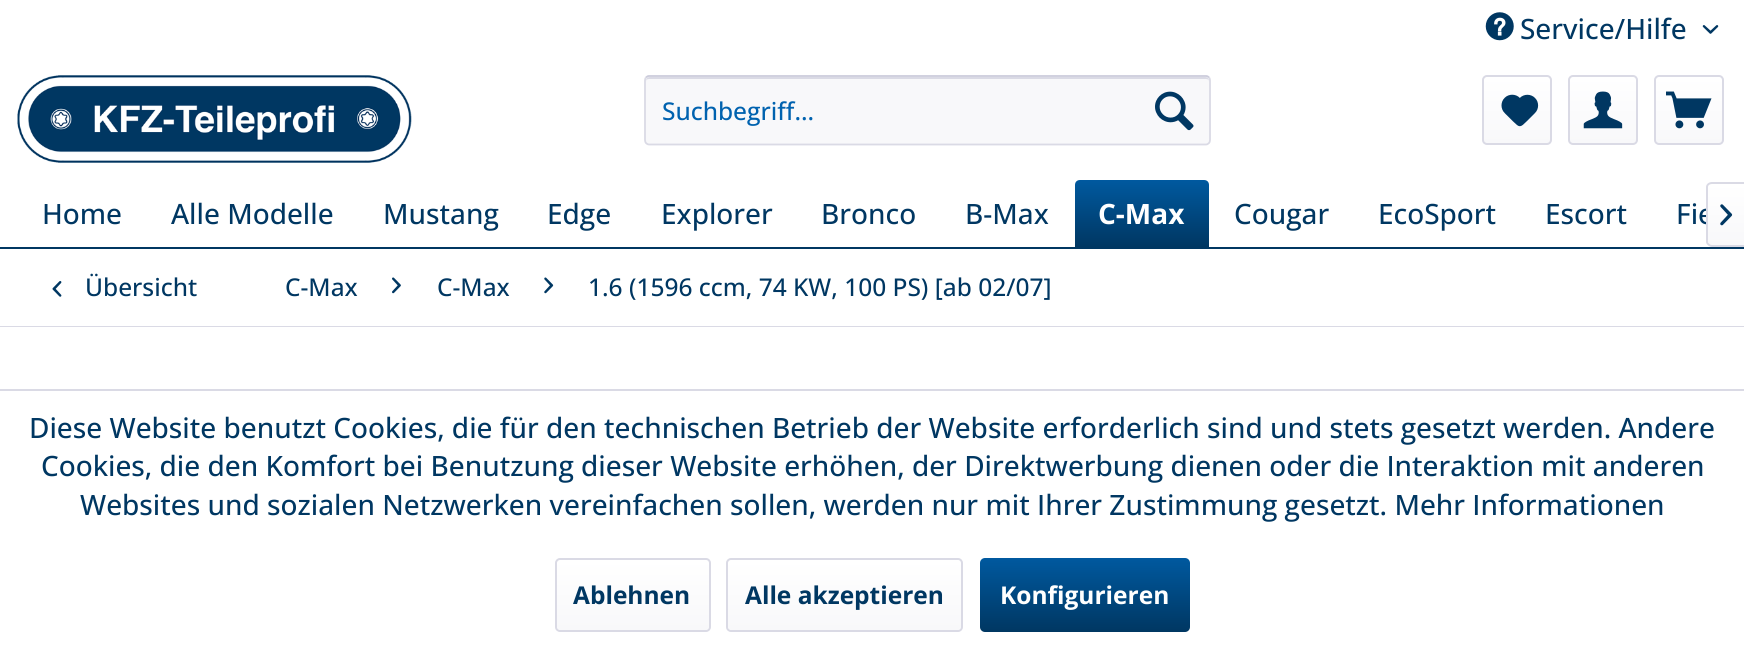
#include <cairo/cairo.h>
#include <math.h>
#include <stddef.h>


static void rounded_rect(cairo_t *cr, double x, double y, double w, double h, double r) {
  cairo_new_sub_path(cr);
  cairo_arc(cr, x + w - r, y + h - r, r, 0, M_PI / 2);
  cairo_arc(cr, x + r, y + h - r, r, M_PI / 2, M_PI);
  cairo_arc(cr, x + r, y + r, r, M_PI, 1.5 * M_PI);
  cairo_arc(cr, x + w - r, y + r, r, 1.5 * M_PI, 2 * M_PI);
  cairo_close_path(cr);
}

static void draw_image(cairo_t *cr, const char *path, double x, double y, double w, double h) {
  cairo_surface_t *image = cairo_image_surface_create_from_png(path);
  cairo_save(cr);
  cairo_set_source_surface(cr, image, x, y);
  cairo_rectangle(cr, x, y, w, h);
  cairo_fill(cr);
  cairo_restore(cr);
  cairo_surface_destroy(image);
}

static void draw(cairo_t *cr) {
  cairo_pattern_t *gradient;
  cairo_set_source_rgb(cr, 1, 1, 1);
  cairo_paint(cr);
  draw_image(cr, "images/1.png", 1485, 12, 29, 29);
  draw_image(cr, "images/2.png", 1702, 25, 17, 9);
  draw_image(cr, "images/3.png", 17, 75, 395, 88);
  cairo_set_source_rgb(cr, 248 / 255.0, 248 / 255.0, 250 / 255.0);
  rounded_rect(cr, 644, 75, 567, 70, 5);
  cairo_fill(cr);
  cairo_set_source_rgb(cr, 218 / 255.0, 218 / 255.0, 229 / 255.0);
  cairo_new_path(cr);
  cairo_move_to(cr, 649, 79);
  cairo_line_to(cr, 1206, 79);
  cairo_curve_to(cr, 1208, 79, 1209, 80, 1209, 82);
  cairo_curve_to(cr, 1209, 79, 1208, 77, 1205, 77);
  cairo_line_to(cr, 650, 77);
  cairo_curve_to(cr, 647, 77, 646, 79, 646, 82);
  cairo_curve_to(cr, 646, 80, 647, 79, 649, 79);
  cairo_close_path(cr);
  cairo_fill(cr);
  cairo_new_path(cr);
  cairo_move_to(cr, 646, 77.5);
  cairo_curve_to(cr, 647, 76.5, 648, 76, 649, 76);
  cairo_line_to(cr, 1206, 76);
  cairo_curve_to(cr, 1207, 76, 1208, 76.5, 1209, 77.5);
  cairo_set_source_rgb(cr, 203 / 255.0, 203 / 255.0, 219 / 255.0);
  cairo_set_line_width(cr, 1.8);
  cairo_stroke(cr);
  cairo_new_path(cr);
  cairo_move_to(cr, 1209, 77.5);
  cairo_curve_to(cr, 1209.5, 78, 1210, 79.5, 1210, 80.5);
  cairo_line_to(cr, 1210, 140);
  cairo_curve_to(cr, 1210, 141, 1209.5, 142.5, 1209, 143);
  cairo_curve_to(cr, 1208, 144, 1207, 144.5, 1206, 144.5);
  cairo_line_to(cr, 649, 144.5);
  cairo_curve_to(cr, 648, 144.5, 647, 144, 646, 143);
  cairo_curve_to(cr, 645.5, 142.5, 645, 141, 645, 140);
  cairo_line_to(cr, 645, 80.5);
  cairo_curve_to(cr, 645, 79.5, 645.5, 78, 646, 77.5);
  cairo_set_source_rgb(cr, 218 / 255.0, 218 / 255.0, 229 / 255.0);
  cairo_stroke(cr);
  draw_image(cr, "images/4.png", 1155, 91, 39, 40);
  gradient = cairo_pattern_create_linear(1517, 77, 1517, 144);
  cairo_pattern_add_color_stop_rgba(gradient, 0, 1, 1, 1, 1);
  cairo_pattern_add_color_stop_rgba(gradient, 1, 248 / 255.0, 248 / 255.0, 250 / 255.0, 1);
  cairo_set_source(cr, gradient);
  cairo_pattern_destroy(gradient);
  rounded_rect(cr, 1484, 77, 67, 67, 4);
  cairo_fill(cr);
  rounded_rect(cr, 1483, 76, 68, 68, 4);
  cairo_set_source_rgb(cr, 218 / 255.0, 218 / 255.0, 229 / 255.0);
  cairo_set_line_width(cr, 2);
  cairo_stroke(cr);
  draw_image(cr, "images/5.png", 1501, 94, 38, 33);
  gradient = cairo_pattern_create_linear(1603, 77, 1603, 144);
  cairo_pattern_add_color_stop_rgba(gradient, 0, 1, 1, 1, 1);
  cairo_pattern_add_color_stop_rgba(gradient, 1, 248 / 255.0, 248 / 255.0, 250 / 255.0, 1);
  cairo_set_source(cr, gradient);
  cairo_pattern_destroy(gradient);
  rounded_rect(cr, 1570, 77, 66, 67, 4);
  cairo_fill(cr);
  rounded_rect(cr, 1569, 76, 68, 68, 4);
  cairo_set_source_rgb(cr, 218 / 255.0, 218 / 255.0, 229 / 255.0);
  cairo_stroke(cr);
  draw_image(cr, "images/6.png", 1583, 91, 40, 38);
  gradient = cairo_pattern_create_linear(1689, 77, 1689, 144);
  cairo_pattern_add_color_stop_rgba(gradient, 0, 1, 1, 1, 1);
  cairo_pattern_add_color_stop_rgba(gradient, 1, 248 / 255.0, 248 / 255.0, 250 / 255.0, 1);
  cairo_set_source(cr, gradient);
  cairo_pattern_destroy(gradient);
  rounded_rect(cr, 1656, 77, 66, 67, 4);
  cairo_fill(cr);
  rounded_rect(cr, 1655, 76, 68, 68, 4);
  cairo_set_source_rgb(cr, 218 / 255.0, 218 / 255.0, 229 / 255.0);
  cairo_stroke(cr);
  draw_image(cr, "images/7.png", 1666, 91, 46, 38);
  cairo_set_source_rgb(cr, 0, 55 / 255.0, 98 / 255.0);
  cairo_rectangle(cr, 0, 247, 1744, 2);
  cairo_fill(cr);
  gradient = cairo_pattern_create_linear(1142, 180, 1142, 247);
  cairo_pattern_add_color_stop_rgba(gradient, 0, 0, 89 / 255.0, 159 / 255.0, 1);
  cairo_pattern_add_color_stop_rgba(gradient, 1, 0, 55 / 255.0, 98 / 255.0, 1);
  cairo_set_source(cr, gradient);
  cairo_pattern_destroy(gradient);
  cairo_new_path(cr);
  cairo_move_to(cr, 1080, 180);
  cairo_line_to(cr, 1204, 180);
  cairo_curve_to(cr, 1207, 180, 1209, 182, 1209, 185);
  cairo_line_to(cr, 1209, 247);
  cairo_line_to(cr, 1075, 247);
  cairo_line_to(cr, 1075, 185);
  cairo_curve_to(cr, 1075, 182, 1077, 180, 1080, 180);
  cairo_close_path(cr);
  cairo_fill(cr);
  cairo_set_source_rgb(cr, 218 / 255.0, 218 / 255.0, 229 / 255.0);
  cairo_rectangle(cr, 0, 326, 1744, 1);
  cairo_fill(cr);
  draw_image(cr, "images/9.png", 52, 281, 10, 16);
  draw_image(cr, "images/10.png", 392, 277, 9, 17);
  draw_image(cr, "images/11.png", 544, 277, 10, 17);
  cairo_rectangle(cr, 0, 389, 1744, 2);
  cairo_fill(cr);
  gradient = cairo_pattern_create_linear(633, 560, 633, 630);
  cairo_pattern_add_color_stop_rgba(gradient, 0, 1, 1, 1, 1);
  cairo_pattern_add_color_stop_rgba(gradient, 1, 248 / 255.0, 248 / 255.0, 250 / 255.0, 1);
  cairo_set_source(cr, gradient);
  cairo_pattern_destroy(gradient);
  rounded_rect(cr, 557, 560, 152, 70, 4);
  cairo_fill(cr);
  rounded_rect(cr, 556, 559, 154, 72, 4);
  cairo_set_source_rgb(cr, 218 / 255.0, 218 / 255.0, 229 / 255.0);
  cairo_stroke(cr);
  gradient = cairo_pattern_create_linear(844, 560, 844, 630);
  cairo_pattern_add_color_stop_rgba(gradient, 0, 1, 1, 1, 1);
  cairo_pattern_add_color_stop_rgba(gradient, 1, 248 / 255.0, 248 / 255.0, 250 / 255.0, 1);
  cairo_set_source(cr, gradient);
  cairo_pattern_destroy(gradient);
  rounded_rect(cr, 728, 560, 233, 70, 4);
  cairo_fill(cr);
  rounded_rect(cr, 727, 559, 235, 72, 4);
  cairo_set_source_rgb(cr, 218 / 255.0, 218 / 255.0, 229 / 255.0);
  cairo_stroke(cr);
  gradient = cairo_pattern_create_linear(1085, 558, 1085, 632);
  cairo_pattern_add_color_stop_rgba(gradient, 0, 0, 89 / 255.0, 159 / 255.0, 1);
  cairo_pattern_add_color_stop_rgba(gradient, 1, 0, 55 / 255.0, 98 / 255.0, 1);
  cairo_set_source(cr, gradient);
  cairo_pattern_destroy(gradient);
  rounded_rect(cr, 980, 558, 210, 74, 5);
  cairo_fill(cr);
  cairo_select_font_face(cr, "Open Sans Medium", CAIRO_FONT_SLANT_NORMAL, CAIRO_FONT_WEIGHT_NORMAL);
  cairo_set_font_size(cr, 28);
  cairo_set_source_rgb(cr, 0, 55 / 255.0, 98 / 255.0);
  cairo_move_to(cr, 1520, 39);
  cairo_show_text(cr, "Service/Hilfe");
  cairo_set_font_size(cr, 24.5);
  cairo_set_source_rgb(cr, 0, 98 / 255.0, 175 / 255.0);
  cairo_move_to(cr, 662, 120);
  cairo_show_text(cr, "Suchbegriff...");
  cairo_set_font_size(cr, 28);
  cairo_set_source_rgb(cr, 0, 55 / 255.0, 98 / 255.0);
  cairo_move_to(cr, 42, 224);
  cairo_show_text(cr, "Home");
  cairo_move_to(cr, 171, 224);
  cairo_show_text(cr, "Alle Modelle");
  cairo_move_to(cr, 383, 224);
  cairo_show_text(cr, "Mustang");
  cairo_move_to(cr, 547, 224);
  cairo_show_text(cr, "Edge");
  cairo_move_to(cr, 661, 224);
  cairo_show_text(cr, "Explorer");
  cairo_move_to(cr, 821, 224);
  cairo_show_text(cr, "Bronco");
  cairo_move_to(cr, 965, 224);
  cairo_show_text(cr, "B-Max");
  cairo_select_font_face(cr, "Open Sans", CAIRO_FONT_SLANT_NORMAL, CAIRO_FONT_WEIGHT_BOLD);
  cairo_set_source_rgb(cr, 1, 1, 1);
  cairo_move_to(cr, 1098, 224);
  cairo_show_text(cr, "C-Max");
  cairo_select_font_face(cr, "Open Sans Medium", CAIRO_FONT_SLANT_NORMAL, CAIRO_FONT_WEIGHT_NORMAL);
  cairo_set_source_rgb(cr, 0, 55 / 255.0, 98 / 255.0);
  cairo_move_to(cr, 1234, 224);
  cairo_show_text(cr, "Cougar");
  cairo_move_to(cr, 1378, 224);
  cairo_show_text(cr, "EcoSport");
  cairo_move_to(cr, 1545, 224);
  cairo_show_text(cr, "Escort");
  cairo_move_to(cr, 1676, 224);
  cairo_show_text(cr, "Fie");
  gradient = cairo_pattern_create_linear(1726, 184, 1726, 245);
  cairo_pattern_add_color_stop_rgba(gradient, 0, 1, 1, 1, 1);
  cairo_pattern_add_color_stop_rgba(gradient, 1, 248 / 255.0, 248 / 255.0, 250 / 255.0, 1);
  cairo_set_source(cr, gradient);
  cairo_pattern_destroy(gradient);
  cairo_new_path(cr);
  cairo_move_to(cr, 1712, 184);
  cairo_line_to(cr, 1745, 184);
  cairo_line_to(cr, 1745, 245);
  cairo_line_to(cr, 1712, 245);
  cairo_curve_to(cr, 1710, 245, 1708, 243, 1708, 241);
  cairo_line_to(cr, 1708, 188);
  cairo_curve_to(cr, 1708, 186, 1710, 184, 1712, 184);
  cairo_close_path(cr);
  cairo_fill(cr);
  cairo_set_source_rgb(cr, 218 / 255.0, 218 / 255.0, 229 / 255.0);
  cairo_set_fill_rule(cr, CAIRO_FILL_RULE_EVEN_ODD);
  cairo_new_path(cr);
  cairo_move_to(cr, 1712, 182);
  cairo_line_to(cr, 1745, 182);
  cairo_line_to(cr, 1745, 247);
  cairo_line_to(cr, 1712, 247);
  cairo_curve_to(cr, 1709, 247, 1706, 244, 1706, 242);
  cairo_line_to(cr, 1706, 187);
  cairo_curve_to(cr, 1706, 184, 1709, 182, 1712, 182);
  cairo_close_path(cr);
  cairo_move_to(cr, 1712, 184);
  cairo_line_to(cr, 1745, 184);
  cairo_line_to(cr, 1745, 245);
  cairo_line_to(cr, 1712, 245);
  cairo_curve_to(cr, 1710, 245, 1708, 243, 1708, 242);
  cairo_line_to(cr, 1708, 187);
  cairo_curve_to(cr, 1708, 185, 1710, 184, 1712, 184);
  cairo_close_path(cr);
  cairo_fill(cr);
  draw_image(cr, "images/8.png", 1720, 204, 13, 22);
  cairo_set_font_size(cr, 24.5);
  cairo_set_source_rgb(cr, 0, 55 / 255.0, 98 / 255.0);
  cairo_move_to(cr, 85, 296);
  cairo_show_text(cr, "Übersicht");
  cairo_move_to(cr, 285, 296);
  cairo_show_text(cr, "C-Max");
  cairo_move_to(cr, 437, 296);
  cairo_show_text(cr, "C-Max");
  cairo_move_to(cr, 588, 296);
  cairo_show_text(cr, "1.6 (1596 ccm, 74 KW, 100 PS) [ab 02/07]");
  cairo_set_font_size(cr, 28);
  cairo_move_to(cr, 29, 438);
  cairo_show_text(cr, "Diese Website benutzt Cookies, die für den technischen Betrieb der Website erforderlich sind und stets gesetzt werden. Andere");
  cairo_move_to(cr, 41, 476);
  cairo_show_text(cr, "Cookies, die den Komfort bei Benutzung dieser Website erhöhen, der Direktwerbung dienen oder die Interaktion mit anderen");
  cairo_move_to(cr, 80, 515);
  cairo_show_text(cr, "Websites und sozialen Netzwerken vereinfachen sollen, werden nur mit Ihrer Zustimmung gesetzt. Mehr Informationen");
  cairo_select_font_face(cr, "Open Sans", CAIRO_FONT_SLANT_NORMAL, CAIRO_FONT_WEIGHT_BOLD);
  cairo_set_font_size(cr, 24.5);
  cairo_move_to(cr, 573, 604);
  cairo_show_text(cr, "Ablehnen");
  cairo_move_to(cr, 745, 604);
  cairo_show_text(cr, "Alle akzeptieren");
  cairo_set_source_rgb(cr, 1, 1, 1);
  cairo_move_to(cr, 1000, 604);
  cairo_show_text(cr, "Konfigurieren");
}

int main(void) {
  cairo_surface_t *surface = cairo_image_surface_create(CAIRO_FORMAT_RGB24, 1744, 648);
  cairo_t *cr = cairo_create(surface);
  cairo_font_options_t *options = cairo_font_options_create();
  cairo_font_options_set_hint_metrics(options, CAIRO_HINT_METRICS_OFF);
  cairo_font_options_set_hint_style(options, CAIRO_HINT_STYLE_NONE);
  cairo_set_font_options(cr, options);
  cairo_set_miter_limit(cr, 4);
  draw(cr);
  cairo_surface_write_to_png(surface, "out.png");
  cairo_font_options_destroy(options);
  cairo_destroy(cr);
  cairo_surface_destroy(surface);
  return 0;
}
